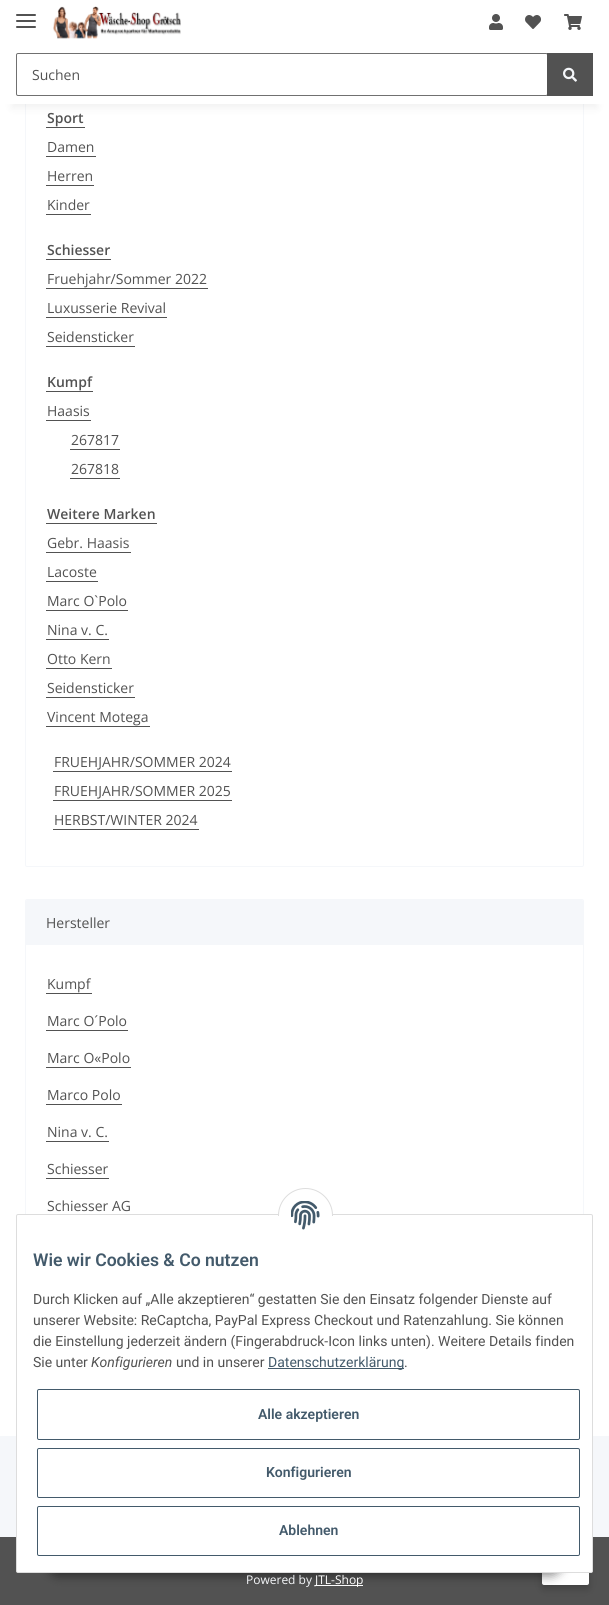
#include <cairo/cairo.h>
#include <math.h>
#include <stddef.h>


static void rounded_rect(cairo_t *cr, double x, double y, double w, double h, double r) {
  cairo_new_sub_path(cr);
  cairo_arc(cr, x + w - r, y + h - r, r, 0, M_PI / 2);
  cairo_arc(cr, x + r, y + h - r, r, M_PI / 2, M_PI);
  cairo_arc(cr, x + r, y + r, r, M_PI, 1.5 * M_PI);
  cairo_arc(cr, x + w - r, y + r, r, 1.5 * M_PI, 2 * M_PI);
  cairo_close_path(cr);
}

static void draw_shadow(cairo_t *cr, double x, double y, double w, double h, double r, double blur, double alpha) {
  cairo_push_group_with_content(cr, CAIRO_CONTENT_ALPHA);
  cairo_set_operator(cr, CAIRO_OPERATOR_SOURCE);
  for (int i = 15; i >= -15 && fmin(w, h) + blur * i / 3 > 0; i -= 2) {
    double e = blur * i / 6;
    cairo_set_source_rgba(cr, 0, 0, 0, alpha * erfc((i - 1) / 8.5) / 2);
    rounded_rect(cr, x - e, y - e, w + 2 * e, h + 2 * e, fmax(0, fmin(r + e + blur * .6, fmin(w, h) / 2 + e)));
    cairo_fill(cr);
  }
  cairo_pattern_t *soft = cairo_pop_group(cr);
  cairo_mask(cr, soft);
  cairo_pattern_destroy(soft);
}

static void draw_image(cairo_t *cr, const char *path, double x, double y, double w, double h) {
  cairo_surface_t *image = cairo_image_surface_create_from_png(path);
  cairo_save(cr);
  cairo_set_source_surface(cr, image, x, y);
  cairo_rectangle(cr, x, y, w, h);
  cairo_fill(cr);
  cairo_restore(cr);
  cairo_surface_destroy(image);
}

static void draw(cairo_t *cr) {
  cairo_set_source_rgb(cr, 245 / 255.0, 247 / 255.0, 250 / 255.0);
  cairo_paint(cr);
  cairo_set_source_rgb(cr, 1, 1, 1);
  cairo_rectangle(cr, 0, 104, 609, 1332);
  cairo_fill(cr);
  rounded_rect(cr, 25.5, -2.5, 558, 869, 1.5);
  cairo_set_source_rgb(cr, 245 / 255.0, 247 / 255.0, 250 / 255.0);
  cairo_set_line_width(cr, 1);
  cairo_stroke(cr);
  cairo_set_source_rgb(cr, 0, 0, 0);
  draw_shadow(cr, 12, 28, 585, 80, 0, 4.5, 0.06);
  cairo_set_source_rgb(cr, 1, 1, 1);
  cairo_rectangle(cr, 0, 0, 609, 104);
  cairo_fill(cr);
  cairo_set_source_rgb(cr, 82 / 255.0, 82 / 255.0, 82 / 255.0);
  rounded_rect(cr, 16, 20, 20, 2, 1);
  cairo_fill(cr);
  rounded_rect(cr, 16, 14, 20, 2, 1);
  cairo_fill(cr);
  rounded_rect(cr, 16, 26, 20, 2, 1);
  cairo_fill(cr);
  draw_image(cr, "images/1.png", 53, 6, 128, 33);
  draw_image(cr, "images/2.png", 489, 14, 14, 16);
  draw_image(cr, "images/3.png", 525, 15, 16, 14);
  draw_image(cr, "images/4.png", 564, 14, 18, 16);
  rounded_rect(cr, 16.5, 53.5, 531, 42, 1.5);
  cairo_set_source_rgb(cr, 112 / 255.0, 112 / 255.0, 112 / 255.0);
  cairo_stroke(cr);
  cairo_set_source_rgb(cr, 82 / 255.0, 82 / 255.0, 82 / 255.0);
  cairo_rectangle(cr, 547, 53, 46, 43);
  cairo_fill(cr);
  draw_image(cr, "images/5.png", 563, 67, 14, 15);
  cairo_rectangle(cr, 46, 127, 39, 1);
  cairo_fill(cr);
  cairo_rectangle(cr, 46, 156, 50, 1);
  cairo_fill(cr);
  cairo_rectangle(cr, 46, 185, 48, 1);
  cairo_fill(cr);
  cairo_rectangle(cr, 46, 214, 45, 1);
  cairo_fill(cr);
  cairo_rectangle(cr, 46, 259, 65, 1);
  cairo_fill(cr);
  cairo_rectangle(cr, 46, 288, 162, 1);
  cairo_fill(cr);
  cairo_rectangle(cr, 46, 317, 121, 1);
  cairo_fill(cr);
  cairo_rectangle(cr, 46, 346, 89, 1);
  cairo_fill(cr);
  cairo_rectangle(cr, 46, 391, 47, 1);
  cairo_fill(cr);
  cairo_rectangle(cr, 46, 420, 45, 1);
  cairo_fill(cr);
  cairo_rectangle(cr, 70, 449, 50, 1);
  cairo_fill(cr);
  cairo_rectangle(cr, 70, 478, 50, 1);
  cairo_fill(cr);
  cairo_rectangle(cr, 46, 523, 111, 1);
  cairo_fill(cr);
  cairo_rectangle(cr, 46, 552, 85, 1);
  cairo_fill(cr);
  cairo_rectangle(cr, 46, 581, 52, 1);
  cairo_fill(cr);
  cairo_rectangle(cr, 46, 610, 82, 1);
  cairo_fill(cr);
  cairo_rectangle(cr, 46, 639, 63, 1);
  cairo_fill(cr);
  cairo_rectangle(cr, 46, 668, 66, 1);
  cairo_fill(cr);
  cairo_rectangle(cr, 46, 697, 89, 1);
  cairo_fill(cr);
  cairo_rectangle(cr, 46, 726, 104, 1);
  cairo_fill(cr);
  cairo_rectangle(cr, 53, 771, 179, 1);
  cairo_fill(cr);
  cairo_rectangle(cr, 53, 800, 179, 1);
  cairo_fill(cr);
  cairo_rectangle(cr, 53, 829, 146, 1);
  cairo_fill(cr);
  rounded_rect(cr, 25.5, 899.5, 558, 456, 1.5);
  cairo_set_source_rgb(cr, 245 / 255.0, 247 / 255.0, 250 / 255.0);
  cairo_stroke(cr);
  cairo_new_path(cr);
  cairo_move_to(cr, 27, 900);
  cairo_line_to(cr, 582, 900);
  cairo_curve_to(cr, 582.5, 900, 583, 900.5, 583, 901);
  cairo_line_to(cr, 583, 945);
  cairo_line_to(cr, 26, 945);
  cairo_line_to(cr, 26, 901);
  cairo_curve_to(cr, 26, 900.5, 26.5, 900, 27, 900);
  cairo_close_path(cr);
  cairo_fill(cr);
  cairo_set_source_rgb(cr, 82 / 255.0, 82 / 255.0, 82 / 255.0);
  cairo_rectangle(cr, 46, 993, 46, 1);
  cairo_fill(cr);
  cairo_rectangle(cr, 46, 1030, 82, 1);
  cairo_fill(cr);
  cairo_rectangle(cr, 46, 1067, 85, 1);
  cairo_fill(cr);
  cairo_rectangle(cr, 46, 1104, 76, 1);
  cairo_fill(cr);
  cairo_rectangle(cr, 46, 1141, 63, 1);
  cairo_fill(cr);
  cairo_rectangle(cr, 46, 1178, 63, 1);
  cairo_fill(cr);
  cairo_rectangle(cr, 0, 1537, 609, 68);
  cairo_fill(cr);
  cairo_set_source_rgb(cr, 1, 1, 1);
  cairo_rectangle(cr, 315, 1585, 48, 1);
  cairo_fill(cr);
  cairo_set_source_rgb(cr, 0, 0, 0);
  draw_shadow(cr, 542, 1545, 47, 44, 2, 4, 0.2);
  cairo_set_source_rgb(cr, 1, 1, 1);
  rounded_rect(cr, 542, 1541, 47, 44, 2);
  cairo_fill(cr);
  cairo_set_source_rgb(cr, 0, 0, 0);
  draw_shadow(cr, 46, 1544, 517, 32, 16, 5, 0.45);
  cairo_set_source_rgb(cr, 1, 1, 1);
  rounded_rect(cr, 16.5, 1214.5, 576, 358, 1.5);
  cairo_fill_preserve(cr);
  cairo_set_source_rgb(cr, 221 / 255.0, 221 / 255.0, 221 / 255.0);
  cairo_stroke(cr);
  cairo_set_source_rgb(cr, 1, 1, 1);
  cairo_arc(cr, 305.5, 1215.5, 27, 0, 2 * M_PI);
  cairo_fill_preserve(cr);
  cairo_set_source_rgb(cr, 221 / 255.0, 221 / 255.0, 221 / 255.0);
  cairo_stroke(cr);
  cairo_set_source_rgb(cr, 1, 1, 1);
  cairo_rectangle(cr, 278, 1216, 55, 27);
  cairo_fill(cr);
  draw_image(cr, "images/6.png", 291, 1201, 29, 29);
  cairo_set_source_rgb(cr, 67 / 255.0, 90 / 255.0, 107 / 255.0);
  cairo_rectangle(cr, 268, 1368, 136, 1);
  cairo_fill(cr);
  rounded_rect(cr, 37.5, 1389.5, 542, 50, 1.5);
  cairo_stroke(cr);
  rounded_rect(cr, 37.5, 1448.5, 542, 49, 1.5);
  cairo_stroke(cr);
  rounded_rect(cr, 37.5, 1506.5, 542, 49, 1.5);
  cairo_stroke(cr);
  cairo_select_font_face(cr, "Open Sans", CAIRO_FONT_SLANT_NORMAL, CAIRO_FONT_WEIGHT_NORMAL);
  cairo_set_font_size(cr, 14);
  cairo_set_source_rgb(cr, 82 / 255.0, 82 / 255.0, 82 / 255.0);
  cairo_move_to(cr, 32, 80);
  cairo_show_text(cr, "Suchen");
  cairo_select_font_face(cr, "Open Sans SemiBold", CAIRO_FONT_SLANT_NORMAL, CAIRO_FONT_WEIGHT_NORMAL);
  cairo_move_to(cr, 47, 123);
  cairo_show_text(cr, "Sport");
  cairo_select_font_face(cr, "Open Sans", CAIRO_FONT_SLANT_NORMAL, CAIRO_FONT_WEIGHT_NORMAL);
  cairo_move_to(cr, 47, 152);
  cairo_show_text(cr, "Damen");
  cairo_move_to(cr, 47, 181);
  cairo_show_text(cr, "Herren");
  cairo_move_to(cr, 47, 210);
  cairo_show_text(cr, "Kinder");
  cairo_select_font_face(cr, "Open Sans SemiBold", CAIRO_FONT_SLANT_NORMAL, CAIRO_FONT_WEIGHT_NORMAL);
  cairo_move_to(cr, 47, 255);
  cairo_show_text(cr, "Schiesser");
  cairo_select_font_face(cr, "Open Sans", CAIRO_FONT_SLANT_NORMAL, CAIRO_FONT_WEIGHT_NORMAL);
  cairo_move_to(cr, 47, 284);
  cairo_show_text(cr, "Fruehjahr/Sommer 2022");
  cairo_move_to(cr, 47, 313);
  cairo_show_text(cr, "Luxusserie Revival");
  cairo_move_to(cr, 47, 342);
  cairo_show_text(cr, "Seidensticker");
  cairo_select_font_face(cr, "Open Sans SemiBold", CAIRO_FONT_SLANT_NORMAL, CAIRO_FONT_WEIGHT_NORMAL);
  cairo_move_to(cr, 47, 387);
  cairo_show_text(cr, "Kumpf");
  cairo_select_font_face(cr, "Open Sans", CAIRO_FONT_SLANT_NORMAL, CAIRO_FONT_WEIGHT_NORMAL);
  cairo_move_to(cr, 47, 416);
  cairo_show_text(cr, "Haasis");
  cairo_move_to(cr, 71, 445);
  cairo_show_text(cr, "267817");
  cairo_move_to(cr, 71, 474);
  cairo_show_text(cr, "267818");
  cairo_select_font_face(cr, "Open Sans SemiBold", CAIRO_FONT_SLANT_NORMAL, CAIRO_FONT_WEIGHT_NORMAL);
  cairo_move_to(cr, 47, 519);
  cairo_show_text(cr, "Weitere Marken");
  cairo_select_font_face(cr, "Open Sans", CAIRO_FONT_SLANT_NORMAL, CAIRO_FONT_WEIGHT_NORMAL);
  cairo_move_to(cr, 47, 548);
  cairo_show_text(cr, "Gebr. Haasis");
  cairo_move_to(cr, 47, 577);
  cairo_show_text(cr, "Lacoste");
  cairo_move_to(cr, 47, 606);
  cairo_show_text(cr, "Marc O`Polo");
  cairo_move_to(cr, 47, 635);
  cairo_show_text(cr, "Nina v. C.");
  cairo_move_to(cr, 47, 664);
  cairo_show_text(cr, "Otto Kern");
  cairo_move_to(cr, 47, 693);
  cairo_show_text(cr, "Seidensticker");
  cairo_move_to(cr, 47, 722);
  cairo_show_text(cr, "Vincent Motega");
  cairo_move_to(cr, 54, 767);
  cairo_show_text(cr, "FRUEHJAHR/SOMMER 2024");
  cairo_move_to(cr, 54, 796);
  cairo_show_text(cr, "FRUEHJAHR/SOMMER 2025");
  cairo_move_to(cr, 54, 825);
  cairo_show_text(cr, "HERBST/WINTER 2024");
  cairo_move_to(cr, 46, 928);
  cairo_show_text(cr, "Hersteller");
  cairo_move_to(cr, 47, 989);
  cairo_show_text(cr, "Kumpf");
  cairo_move_to(cr, 47, 1026);
  cairo_show_text(cr, "Marc O´Polo");
  cairo_move_to(cr, 47, 1063);
  cairo_show_text(cr, "Marc O«Polo");
  cairo_move_to(cr, 47, 1100);
  cairo_show_text(cr, "Marco Polo");
  cairo_move_to(cr, 47, 1137);
  cairo_show_text(cr, "Nina v. C.");
  cairo_move_to(cr, 47, 1174);
  cairo_show_text(cr, "Schiesser");
  cairo_move_to(cr, 47, 1211);
  cairo_show_text(cr, "Schiesser AG");
  cairo_select_font_face(cr, "Roboto SemiBold", CAIRO_FONT_SLANT_NORMAL, CAIRO_FONT_WEIGHT_NORMAL);
  cairo_set_font_size(cr, 17.6);
  cairo_set_source_rgb(cr, 67 / 255.0, 90 / 255.0, 107 / 255.0);
  cairo_move_to(cr, 33, 1266);
  cairo_show_text(cr, "Wie wir Cookies & Co nutzen");
  cairo_select_font_face(cr, "Roboto", CAIRO_FONT_SLANT_NORMAL, CAIRO_FONT_WEIGHT_NORMAL);
  cairo_set_font_size(cr, 14);
  cairo_set_source_rgb(cr, 82 / 255.0, 82 / 255.0, 82 / 255.0);
  cairo_move_to(cr, 33, 1304);
  cairo_show_text(cr, "Durch Klicken auf „Alle akzeptieren“ gestatten Sie den Einsatz folgender Dienste auf");
  cairo_move_to(cr, 33, 1325);
  cairo_show_text(cr, "unserer Website: ReCaptcha, PayPal Express Checkout und Ratenzahlung. Sie können");
  cairo_move_to(cr, 33, 1346);
  cairo_show_text(cr, "die Einstellung jederzeit ändern (Fingerabdruck-Icon links unten). Weitere Details finden");
  cairo_move_to(cr, 33, 1367);
  cairo_show_text(cr, "Sie unter");
  cairo_select_font_face(cr, "Roboto", CAIRO_FONT_SLANT_ITALIC, CAIRO_FONT_WEIGHT_NORMAL);
  cairo_move_to(cr, 91, 1367);
  cairo_show_text(cr, "Konfigurieren");
  cairo_select_font_face(cr, "Roboto", CAIRO_FONT_SLANT_NORMAL, CAIRO_FONT_WEIGHT_NORMAL);
  cairo_move_to(cr, 176, 1367);
  cairo_show_text(cr, "und in unserer");
  cairo_set_source_rgb(cr, 67 / 255.0, 90 / 255.0, 107 / 255.0);
  cairo_move_to(cr, 268, 1367);
  cairo_show_text(cr, "Datenschutzerklärung");
  cairo_set_source_rgb(cr, 82 / 255.0, 82 / 255.0, 82 / 255.0);
  cairo_move_to(cr, 404, 1367);
  cairo_show_text(cr, ".");
  cairo_select_font_face(cr, "Roboto SemiBold", CAIRO_FONT_SLANT_NORMAL, CAIRO_FONT_WEIGHT_NORMAL);
  cairo_set_source_rgb(cr, 67 / 255.0, 90 / 255.0, 107 / 255.0);
  cairo_move_to(cr, 258, 1419);
  cairo_show_text(cr, "Alle akzeptieren");
  cairo_move_to(cr, 266, 1477);
  cairo_show_text(cr, "Konfigurieren");
  cairo_move_to(cr, 279, 1535);
  cairo_show_text(cr, "Ablehnen");
  cairo_select_font_face(cr, "Open Sans", CAIRO_FONT_SLANT_NORMAL, CAIRO_FONT_WEIGHT_NORMAL);
  cairo_set_font_size(cr, 12);
  cairo_set_source_rgb(cr, 245 / 255.0, 247 / 255.0, 250 / 255.0);
  cairo_move_to(cr, 246, 1584);
  cairo_show_text(cr, "Powered by");
  cairo_set_source_rgb(cr, 1, 1, 1);
  cairo_move_to(cr, 315, 1584);
  cairo_show_text(cr, "JTL-Shop");
}

int main(void) {
  cairo_surface_t *surface = cairo_image_surface_create(CAIRO_FORMAT_RGB24, 609, 1605);
  cairo_t *cr = cairo_create(surface);
  cairo_font_options_t *options = cairo_font_options_create();
  cairo_font_options_set_hint_metrics(options, CAIRO_HINT_METRICS_OFF);
  cairo_font_options_set_hint_style(options, CAIRO_HINT_STYLE_NONE);
  cairo_set_font_options(cr, options);
  cairo_set_miter_limit(cr, 4);
  draw(cr);
  cairo_surface_write_to_png(surface, "out.png");
  cairo_font_options_destroy(options);
  cairo_destroy(cr);
  cairo_surface_destroy(surface);
  return 0;
}
